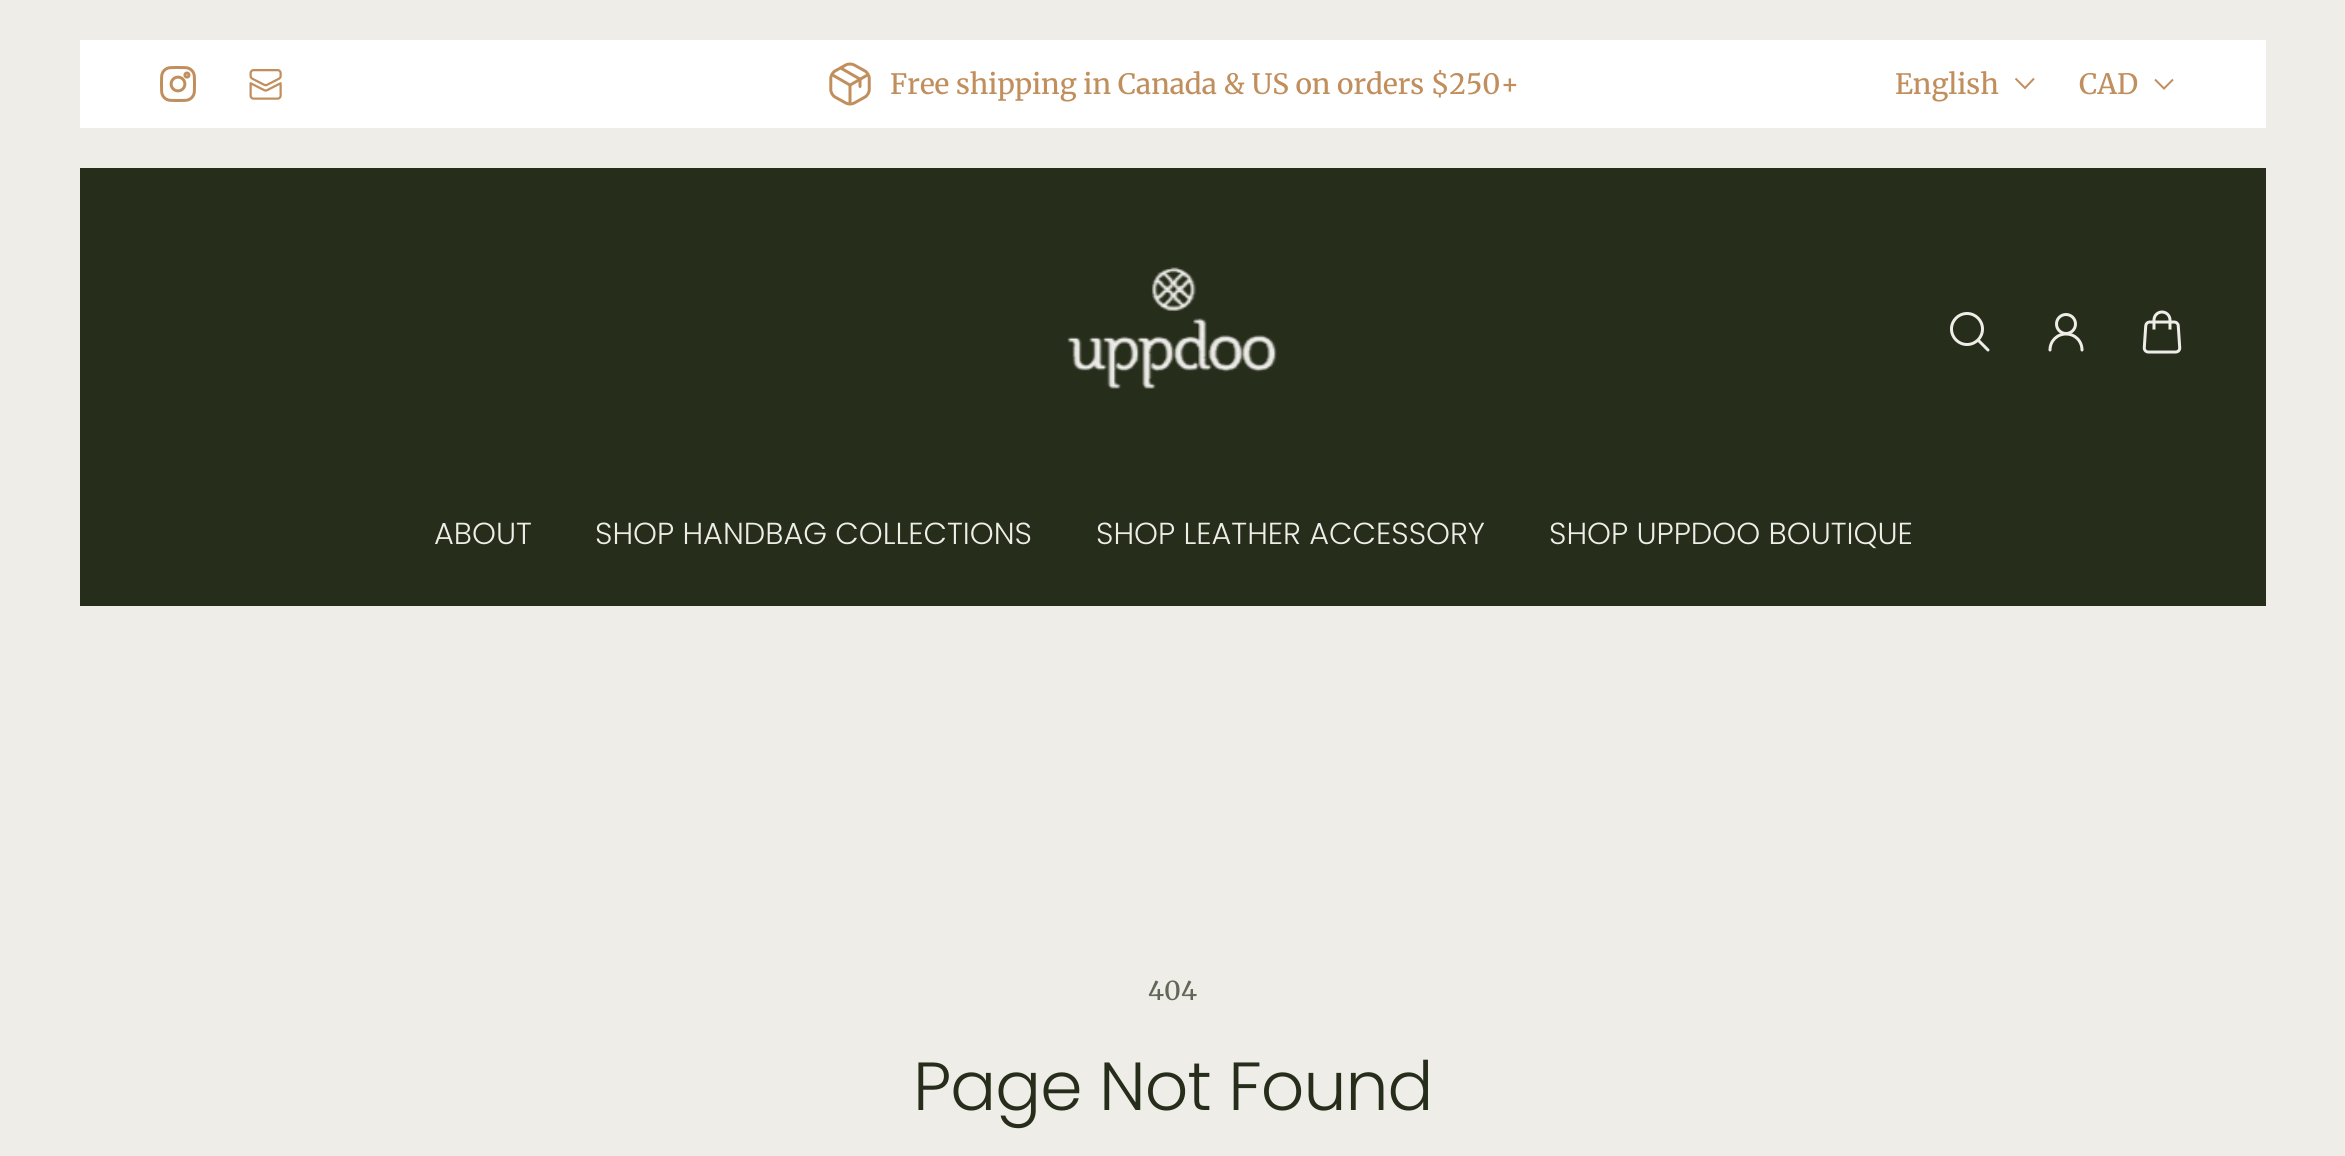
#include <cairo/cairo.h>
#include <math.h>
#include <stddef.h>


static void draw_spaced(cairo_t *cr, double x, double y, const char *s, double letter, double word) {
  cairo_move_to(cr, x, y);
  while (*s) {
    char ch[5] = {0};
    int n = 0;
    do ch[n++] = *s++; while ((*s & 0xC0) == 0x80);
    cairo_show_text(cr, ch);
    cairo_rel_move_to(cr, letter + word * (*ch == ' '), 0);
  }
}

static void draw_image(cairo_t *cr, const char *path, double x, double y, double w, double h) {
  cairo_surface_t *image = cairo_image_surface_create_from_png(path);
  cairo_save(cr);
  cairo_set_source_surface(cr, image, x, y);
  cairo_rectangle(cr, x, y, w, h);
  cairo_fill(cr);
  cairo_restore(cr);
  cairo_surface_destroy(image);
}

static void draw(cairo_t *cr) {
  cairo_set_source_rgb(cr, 238 / 255.0, 237 / 255.0, 232 / 255.0);
  cairo_paint(cr);
  cairo_set_source_rgb(cr, 1, 1, 1);
  cairo_rectangle(cr, 80, 40, 2186, 88);
  cairo_fill(cr);
  draw_image(cr, "images/1.png", 160, 66, 36, 36);
  draw_image(cr, "images/2.png", 249, 69, 33, 31);
  draw_image(cr, "images/3.png", 829, 62, 42, 44);
  cairo_new_path(cr);
  cairo_move_to(cr, 2034, 78.5);
  cairo_line_to(cr, 2025, 88);
  cairo_line_to(cr, 2015.5, 78.5);
  cairo_set_source_rgb(cr, 193 / 255.0, 143 / 255.0, 94 / 255.0);
  cairo_stroke(cr);
  cairo_new_path(cr);
  cairo_move_to(cr, 2173, 79.5);
  cairo_line_to(cr, 2164, 88.5);
  cairo_line_to(cr, 2155, 79.5);
  cairo_stroke(cr);
  cairo_set_source_rgb(cr, 38 / 255.0, 45 / 255.0, 26 / 255.0);
  cairo_rectangle(cr, 80, 168, 2186, 438);
  cairo_fill(cr);
  draw_image(cr, "images/4.png", 1067, 267, 210, 122);
  cairo_arc(cr, 1967, 329, 15.5, 0, 2 * M_PI);
  cairo_set_source_rgb(cr, 238 / 255.0, 237 / 255.0, 232 / 255.0);
  cairo_set_line_width(cr, 3);
  cairo_stroke(cr);
  cairo_new_path(cr);
  cairo_move_to(cr, 1978.5, 340.5);
  cairo_line_to(cr, 1988, 350);
  cairo_set_line_cap(cr, CAIRO_LINE_CAP_ROUND);
  cairo_set_line_join(cr, CAIRO_LINE_JOIN_ROUND);
  cairo_stroke(cr);
  cairo_arc(cr, 2066, 324, 9.5, 0, 2 * M_PI);
  cairo_set_line_cap(cr, CAIRO_LINE_CAP_BUTT);
  cairo_set_line_join(cr, CAIRO_LINE_JOIN_MITER);
  cairo_stroke(cr);
  cairo_new_path(cr);
  cairo_move_to(cr, 2082, 350);
  cairo_curve_to(cr, 2082, 341, 2075, 334, 2066, 334);
  cairo_curve_to(cr, 2057, 334, 2050, 341, 2050, 350);
  cairo_set_line_cap(cr, CAIRO_LINE_CAP_ROUND);
  cairo_set_line_join(cr, CAIRO_LINE_JOIN_ROUND);
  cairo_stroke(cr);
  draw_image(cr, "images/5.png", 2142, 310, 40, 44);
  cairo_select_font_face(cr, "Merriweather Medium", CAIRO_FONT_SLANT_NORMAL, CAIRO_FONT_WEIGHT_NORMAL);
  cairo_set_font_size(cr, 28);
  cairo_set_source_rgb(cr, 193 / 255.0, 143 / 255.0, 94 / 255.0);
  cairo_move_to(cr, 890, 94);
  cairo_show_text(cr, "Free shipping in Canada & US on orders $250+");
  cairo_move_to(cr, 1895, 94);
  cairo_show_text(cr, "English");
  cairo_move_to(cr, 2079, 94);
  cairo_show_text(cr, "CAD");
  cairo_select_font_face(cr, "Poppins Light", CAIRO_FONT_SLANT_NORMAL, CAIRO_FONT_WEIGHT_NORMAL);
  cairo_set_font_size(cr, 30.4);
  cairo_set_source_rgb(cr, 238 / 255.0, 237 / 255.0, 232 / 255.0);
  cairo_move_to(cr, 434, 544);
  cairo_show_text(cr, "ABOUT");
  cairo_move_to(cr, 595, 544);
  cairo_show_text(cr, "SHOP HANDBAG COLLECTIONS");
  cairo_move_to(cr, 1096, 544);
  cairo_show_text(cr, "SHOP LEATHER ACCESSORY");
  cairo_move_to(cr, 1549, 544);
  cairo_show_text(cr, "SHOP UPPDOO BOUTIQUE");
  cairo_select_font_face(cr, "Merriweather Medium", CAIRO_FONT_SLANT_NORMAL, CAIRO_FONT_WEIGHT_NORMAL);
  cairo_set_font_size(cr, 26);
  cairo_set_source_rgb(cr, 98 / 255.0, 103 / 255.0, 88 / 255.0);
  cairo_move_to(cr, 1148, 1000);
  cairo_show_text(cr, "404");
  cairo_select_font_face(cr, "Poppins Light", CAIRO_FONT_SLANT_NORMAL, CAIRO_FONT_WEIGHT_NORMAL);
  cairo_set_font_size(cr, 68);
  cairo_set_source_rgb(cr, 38 / 255.0, 45 / 255.0, 26 / 255.0);
  draw_spaced(cr, 913, 1110, "Page Not Found", -1, 0);
}

int main(void) {
  cairo_surface_t *surface = cairo_image_surface_create(CAIRO_FORMAT_RGB24, 2345, 1156);
  cairo_t *cr = cairo_create(surface);
  cairo_font_options_t *options = cairo_font_options_create();
  cairo_font_options_set_hint_metrics(options, CAIRO_HINT_METRICS_OFF);
  cairo_font_options_set_hint_style(options, CAIRO_HINT_STYLE_NONE);
  cairo_set_font_options(cr, options);
  cairo_set_miter_limit(cr, 4);
  draw(cr);
  cairo_surface_write_to_png(surface, "out.png");
  cairo_font_options_destroy(options);
  cairo_destroy(cr);
  cairo_surface_destroy(surface);
  return 0;
}
